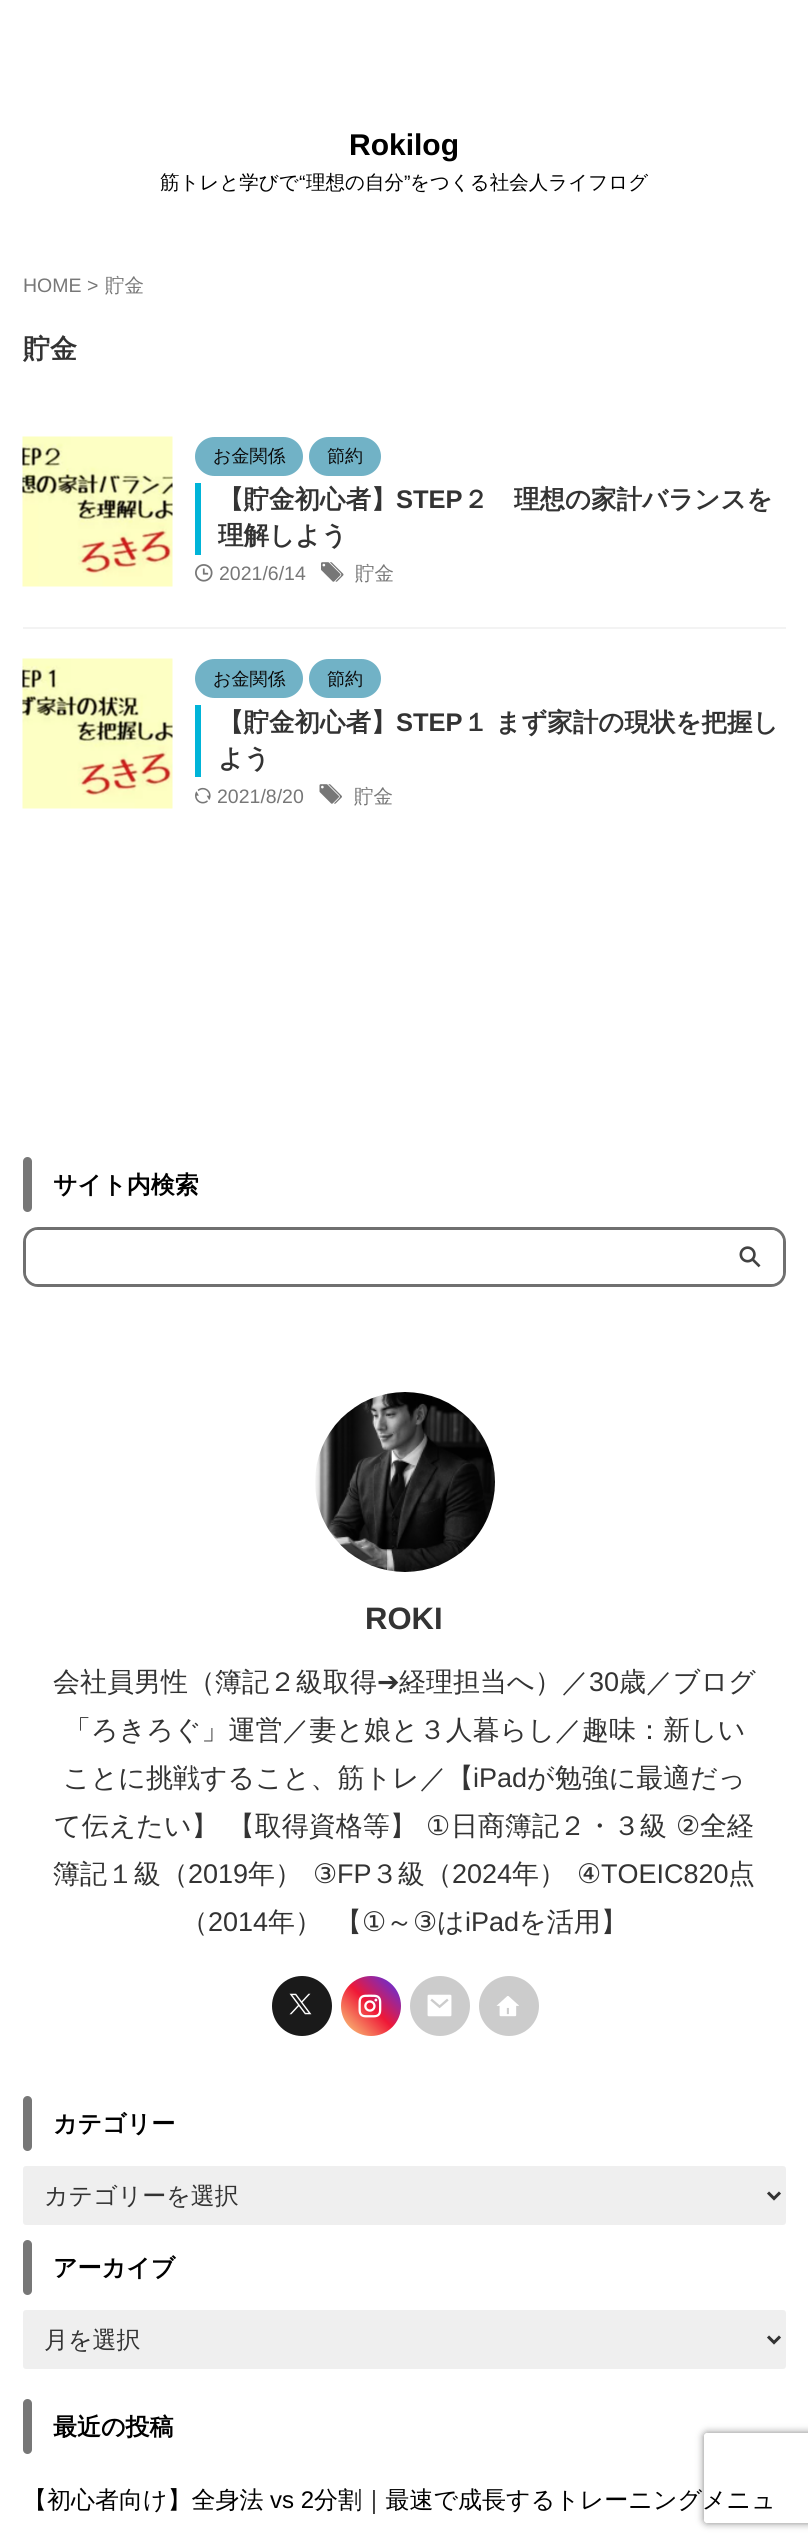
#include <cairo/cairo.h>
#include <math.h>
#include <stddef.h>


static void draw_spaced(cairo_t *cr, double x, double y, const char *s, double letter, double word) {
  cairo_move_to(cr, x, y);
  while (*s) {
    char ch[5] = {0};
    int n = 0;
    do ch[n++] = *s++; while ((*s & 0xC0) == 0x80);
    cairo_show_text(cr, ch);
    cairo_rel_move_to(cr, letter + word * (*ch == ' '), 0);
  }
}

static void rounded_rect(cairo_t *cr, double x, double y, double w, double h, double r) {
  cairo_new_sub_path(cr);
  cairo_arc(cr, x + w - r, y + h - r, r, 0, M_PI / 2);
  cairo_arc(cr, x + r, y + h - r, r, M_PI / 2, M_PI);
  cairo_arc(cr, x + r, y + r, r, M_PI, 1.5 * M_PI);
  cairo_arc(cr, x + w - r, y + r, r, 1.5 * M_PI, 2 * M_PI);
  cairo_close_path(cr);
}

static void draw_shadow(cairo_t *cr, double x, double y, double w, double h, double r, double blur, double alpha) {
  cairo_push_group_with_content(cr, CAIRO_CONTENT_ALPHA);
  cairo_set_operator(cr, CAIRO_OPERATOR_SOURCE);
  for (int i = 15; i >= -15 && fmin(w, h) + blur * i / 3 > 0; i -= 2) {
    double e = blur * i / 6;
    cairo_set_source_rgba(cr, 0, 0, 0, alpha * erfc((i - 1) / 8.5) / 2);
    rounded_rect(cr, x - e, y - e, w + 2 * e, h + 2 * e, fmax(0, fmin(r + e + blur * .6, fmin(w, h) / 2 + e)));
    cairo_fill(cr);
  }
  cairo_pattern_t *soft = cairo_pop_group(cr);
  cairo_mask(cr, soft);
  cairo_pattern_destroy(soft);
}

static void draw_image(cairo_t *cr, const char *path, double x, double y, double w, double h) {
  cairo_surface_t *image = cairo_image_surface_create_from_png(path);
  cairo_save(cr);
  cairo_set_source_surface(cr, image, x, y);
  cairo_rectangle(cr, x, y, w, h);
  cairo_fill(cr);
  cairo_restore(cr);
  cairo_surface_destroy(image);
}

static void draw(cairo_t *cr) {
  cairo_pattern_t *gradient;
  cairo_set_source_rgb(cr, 1, 1, 1);
  cairo_paint(cr);
  cairo_set_source_rgb(cr, 243 / 255.0, 243 / 255.0, 243 / 255.0);
  cairo_rectangle(cr, 23, 627, 763, 2);
  cairo_fill(cr);
  draw_image(cr, "images/1.png", 22, 436, 151, 151);
  cairo_set_source_rgb(cr, 113 / 255.0, 178 / 255.0, 198 / 255.0);
  rounded_rect(cr, 195, 437, 108, 39, 19.5);
  cairo_fill(cr);
  rounded_rect(cr, 309, 437, 72, 39, 19.5);
  cairo_fill(cr);
  cairo_set_source_rgb(cr, 0, 180 / 255.0, 216 / 255.0);
  cairo_rectangle(cr, 195, 483, 6, 72);
  cairo_fill(cr);
  draw_image(cr, "images/2.png", 195, 564, 18, 18);
  draw_image(cr, "images/3.png", 321, 562, 23, 20);
  draw_image(cr, "images/4.png", 22, 658, 151, 151);
  cairo_set_source_rgb(cr, 113 / 255.0, 178 / 255.0, 198 / 255.0);
  rounded_rect(cr, 195, 659, 108, 39, 19.5);
  cairo_fill(cr);
  rounded_rect(cr, 309, 659, 72, 39, 19.5);
  cairo_fill(cr);
  cairo_set_source_rgb(cr, 0, 180 / 255.0, 216 / 255.0);
  cairo_rectangle(cr, 195, 705, 6, 72);
  cairo_fill(cr);
  draw_image(cr, "images/5.png", 195, 787, 16, 17);
  draw_image(cr, "images/6.png", 319, 784, 23, 20);
  cairo_set_source_rgb(cr, 119 / 255.0, 119 / 255.0, 119 / 255.0);
  rounded_rect(cr, 23, 1157, 9, 55, 4.5);
  cairo_fill(cr);
  rounded_rect(cr, 24.5, 1228.5, 760, 57, 13.5);
  cairo_set_source_rgb(cr, 112 / 255.0, 112 / 255.0, 112 / 255.0);
  cairo_set_line_width(cr, 3);
  cairo_stroke(cr);
  cairo_set_source_rgb(cr, 1, 1, 1);
  cairo_new_path(cr);
  cairo_move_to(cr, 38, 1230);
  cairo_line_to(cr, 717, 1230);
  cairo_line_to(cr, 717, 1284);
  cairo_line_to(cr, 38, 1284);
  cairo_curve_to(cr, 31.5, 1284, 26, 1278.5, 26, 1272);
  cairo_line_to(cr, 26, 1242);
  cairo_curve_to(cr, 26, 1235.5, 31.5, 1230, 38, 1230);
  cairo_close_path(cr);
  cairo_fill(cr);
  cairo_new_path(cr);
  cairo_move_to(cr, 717, 1230);
  cairo_line_to(cr, 771, 1230);
  cairo_curve_to(cr, 777.5, 1230, 783, 1235.5, 783, 1242);
  cairo_line_to(cr, 783, 1272);
  cairo_curve_to(cr, 783, 1278.5, 777.5, 1284, 771, 1284);
  cairo_line_to(cr, 717, 1284);
  cairo_close_path(cr);
  cairo_fill(cr);
  draw_image(cr, "images/7.png", 739, 1246, 22, 22);
  draw_image(cr, "images/8.png", 315, 1392, 180, 180);
  cairo_set_source_rgb(cr, 26 / 255.0, 26 / 255.0, 26 / 255.0);
  cairo_arc(cr, 302, 2006, 30, 0, 2 * M_PI);
  cairo_fill(cr);
  draw_image(cr, "images/9.png", 289, 1993, 23, 22);
  gradient = cairo_pattern_create_linear(401, 1976, 341, 2036);
  cairo_pattern_add_color_stop_rgba(gradient, 0, 73 / 255.0, 51 / 255.0, 247 / 255.0, 1);
  cairo_pattern_add_color_stop_rgba(gradient, 0.5, 239 / 255.0, 24 / 255.0, 55 / 255.0, 1);
  cairo_pattern_add_color_stop_rgba(gradient, 1, 251 / 255.0, 217 / 255.0, 128 / 255.0, 1);
  cairo_set_source(cr, gradient);
  cairo_pattern_destroy(gradient);
  cairo_arc(cr, 371, 2006, 30, 0, 2 * M_PI);
  cairo_fill(cr);
  draw_image(cr, "images/10.png", 358, 1994, 24, 24);
  cairo_set_source_rgb(cr, 204 / 255.0, 204 / 255.0, 204 / 255.0);
  cairo_arc(cr, 440, 2006, 30, 0, 2 * M_PI);
  cairo_fill(cr);
  draw_image(cr, "images/11.png", 427, 1994, 25, 23);
  cairo_arc(cr, 509, 2006, 30, 0, 2 * M_PI);
  cairo_fill(cr);
  draw_image(cr, "images/12.png", 496, 1996, 23, 21);
  cairo_set_source_rgb(cr, 119 / 255.0, 119 / 255.0, 119 / 255.0);
  rounded_rect(cr, 23, 2096, 9, 55, 4.5);
  cairo_fill(cr);
  cairo_set_source_rgb(cr, 239 / 255.0, 239 / 255.0, 239 / 255.0);
  rounded_rect(cr, 23, 2166, 763, 59, 3);
  cairo_fill(cr);
  cairo_new_path(cr);
  cairo_move_to(cr, 768, 2192.5);
  cairo_line_to(cr, 774, 2198.5);
  cairo_line_to(cr, 780, 2192.5);
  cairo_set_source_rgb(cr, 51 / 255.0, 51 / 255.0, 51 / 255.0);
  cairo_stroke(cr);
  cairo_set_source_rgb(cr, 119 / 255.0, 119 / 255.0, 119 / 255.0);
  rounded_rect(cr, 23, 2240, 9, 55, 4.5);
  cairo_fill(cr);
  cairo_set_source_rgb(cr, 239 / 255.0, 239 / 255.0, 239 / 255.0);
  rounded_rect(cr, 23, 2310, 763, 59, 3);
  cairo_fill(cr);
  cairo_new_path(cr);
  cairo_move_to(cr, 768, 2336.5);
  cairo_line_to(cr, 774, 2342.5);
  cairo_line_to(cr, 780, 2336.5);
  cairo_set_source_rgb(cr, 51 / 255.0, 51 / 255.0, 51 / 255.0);
  cairo_stroke(cr);
  cairo_set_source_rgb(cr, 119 / 255.0, 119 / 255.0, 119 / 255.0);
  rounded_rect(cr, 23, 2399, 9, 55, 4.5);
  cairo_fill(cr);
  cairo_save(cr);
  cairo_set_fill_rule(cr, CAIRO_FILL_RULE_EVEN_ODD);
  cairo_new_path(cr);
  cairo_move_to(cr, 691, 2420);
  cairo_line_to(cr, 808, 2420);
  cairo_line_to(cr, 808, 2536);
  cairo_line_to(cr, 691, 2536);
  cairo_close_path(cr);
  cairo_move_to(cr, 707, 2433);
  cairo_line_to(cr, 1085, 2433);
  cairo_curve_to(cr, 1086.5, 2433, 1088, 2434.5, 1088, 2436);
  cairo_line_to(cr, 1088, 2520);
  cairo_curve_to(cr, 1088, 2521.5, 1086.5, 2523, 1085, 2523);
  cairo_line_to(cr, 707, 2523);
  cairo_curve_to(cr, 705.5, 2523, 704, 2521.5, 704, 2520);
  cairo_line_to(cr, 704, 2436);
  cairo_curve_to(cr, 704, 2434.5, 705.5, 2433, 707, 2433);
  cairo_close_path(cr);
  cairo_clip(cr);
  cairo_set_source_rgb(cr, 128 / 255.0, 128 / 255.0, 128 / 255.0);
  draw_shadow(cr, 704, 2433, 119, 90, 3, 4, 1);
  cairo_restore(cr);
  cairo_select_font_face(cr, "Liberation Sans", CAIRO_FONT_SLANT_NORMAL, CAIRO_FONT_WEIGHT_BOLD);
  cairo_set_font_size(cr, 30);
  cairo_set_source_rgb(cr, 0, 0, 0);
  cairo_move_to(cr, 349, 155);
  cairo_show_text(cr, "Rokilog");
  cairo_select_font_face(cr, "WenQuanYi Zen Hei Medium", CAIRO_FONT_SLANT_NORMAL, CAIRO_FONT_WEIGHT_NORMAL);
  cairo_set_font_size(cr, 19.5);
  cairo_move_to(cr, 160, 189);
  cairo_show_text(cr, "筋トレと学びで");
  cairo_select_font_face(cr, "Liberation Sans", CAIRO_FONT_SLANT_NORMAL, CAIRO_FONT_WEIGHT_NORMAL);
  cairo_move_to(cr, 299, 189);
  cairo_show_text(cr, "“");
  cairo_select_font_face(cr, "WenQuanYi Zen Hei Medium", CAIRO_FONT_SLANT_NORMAL, CAIRO_FONT_WEIGHT_NORMAL);
  cairo_move_to(cr, 306, 189);
  cairo_show_text(cr, "理想の自分");
  cairo_select_font_face(cr, "Liberation Sans", CAIRO_FONT_SLANT_NORMAL, CAIRO_FONT_WEIGHT_NORMAL);
  cairo_move_to(cr, 404, 189);
  cairo_show_text(cr, "”");
  cairo_select_font_face(cr, "WenQuanYi Zen Hei Medium", CAIRO_FONT_SLANT_NORMAL, CAIRO_FONT_WEIGHT_NORMAL);
  cairo_move_to(cr, 410, 189);
  cairo_show_text(cr, "をつくる社会人ライフログ");
  cairo_select_font_face(cr, "Liberation Sans", CAIRO_FONT_SLANT_NORMAL, CAIRO_FONT_WEIGHT_NORMAL);
  cairo_set_source_rgb(cr, 119 / 255.0, 119 / 255.0, 119 / 255.0);
  cairo_move_to(cr, 23, 292);
  cairo_show_text(cr, "HOME >");
  cairo_select_font_face(cr, "WenQuanYi Zen Hei Medium", CAIRO_FONT_SLANT_NORMAL, CAIRO_FONT_WEIGHT_NORMAL);
  cairo_move_to(cr, 105, 292);
  cairo_show_text(cr, "貯金");
  cairo_select_font_face(cr, "WenQuanYi Zen Hei", CAIRO_FONT_SLANT_NORMAL, CAIRO_FONT_WEIGHT_BOLD);
  cairo_set_font_size(cr, 27);
  cairo_set_source_rgb(cr, 51 / 255.0, 51 / 255.0, 51 / 255.0);
  cairo_move_to(cr, 23, 358);
  cairo_show_text(cr, "貯金");
  cairo_select_font_face(cr, "WenQuanYi Zen Hei Medium", CAIRO_FONT_SLANT_NORMAL, CAIRO_FONT_WEIGHT_NORMAL);
  cairo_set_font_size(cr, 18);
  cairo_set_source_rgb(cr, 10 / 255.0, 10 / 255.0, 10 / 255.0);
  cairo_move_to(cr, 213, 462);
  cairo_show_text(cr, "お金関係");
  cairo_move_to(cr, 327, 462);
  cairo_show_text(cr, "節約");
  cairo_select_font_face(cr, "WenQuanYi Zen Hei", CAIRO_FONT_SLANT_NORMAL, CAIRO_FONT_WEIGHT_BOLD);
  cairo_set_font_size(cr, 25.5);
  cairo_set_source_rgb(cr, 51 / 255.0, 51 / 255.0, 51 / 255.0);
  cairo_move_to(cr, 218, 508);
  cairo_show_text(cr, "【貯金初心者】");
  cairo_select_font_face(cr, "Liberation Sans", CAIRO_FONT_SLANT_NORMAL, CAIRO_FONT_WEIGHT_BOLD);
  cairo_move_to(cr, 396, 508);
  cairo_show_text(cr, "STEP");
  cairo_select_font_face(cr, "WenQuanYi Zen Hei", CAIRO_FONT_SLANT_NORMAL, CAIRO_FONT_WEIGHT_BOLD);
  cairo_move_to(cr, 463, 508);
  cairo_show_text(cr, "２　理想の家計バランスを");
  cairo_move_to(cr, 218, 544);
  cairo_show_text(cr, "理解しよう");
  cairo_select_font_face(cr, "Liberation Sans", CAIRO_FONT_SLANT_NORMAL, CAIRO_FONT_WEIGHT_NORMAL);
  cairo_set_font_size(cr, 19.5);
  cairo_set_source_rgb(cr, 119 / 255.0, 119 / 255.0, 119 / 255.0);
  cairo_move_to(cr, 219, 580);
  cairo_show_text(cr, "2021/6/14");
  cairo_select_font_face(cr, "WenQuanYi Zen Hei Medium", CAIRO_FONT_SLANT_NORMAL, CAIRO_FONT_WEIGHT_NORMAL);
  cairo_move_to(cr, 355, 580);
  cairo_show_text(cr, "貯金");
  cairo_set_font_size(cr, 18);
  cairo_set_source_rgb(cr, 10 / 255.0, 10 / 255.0, 10 / 255.0);
  cairo_move_to(cr, 213, 685);
  cairo_show_text(cr, "お金関係");
  cairo_move_to(cr, 327, 685);
  cairo_show_text(cr, "節約");
  cairo_select_font_face(cr, "WenQuanYi Zen Hei", CAIRO_FONT_SLANT_NORMAL, CAIRO_FONT_WEIGHT_BOLD);
  cairo_set_font_size(cr, 25.5);
  cairo_set_source_rgb(cr, 51 / 255.0, 51 / 255.0, 51 / 255.0);
  cairo_move_to(cr, 218, 731);
  cairo_show_text(cr, "【貯金初心者】");
  cairo_select_font_face(cr, "Liberation Sans", CAIRO_FONT_SLANT_NORMAL, CAIRO_FONT_WEIGHT_BOLD);
  cairo_move_to(cr, 396, 731);
  cairo_show_text(cr, "STEP");
  cairo_select_font_face(cr, "WenQuanYi Zen Hei", CAIRO_FONT_SLANT_NORMAL, CAIRO_FONT_WEIGHT_BOLD);
  draw_spaced(cr, 463, 731, "１ まず家計の現状を把握し", 0, -1);
  cairo_move_to(cr, 218, 767);
  cairo_show_text(cr, "よう");
  cairo_select_font_face(cr, "Liberation Sans", CAIRO_FONT_SLANT_NORMAL, CAIRO_FONT_WEIGHT_NORMAL);
  cairo_set_font_size(cr, 19.5);
  cairo_set_source_rgb(cr, 119 / 255.0, 119 / 255.0, 119 / 255.0);
  cairo_move_to(cr, 217, 803);
  cairo_show_text(cr, "2021/8/20");
  cairo_select_font_face(cr, "WenQuanYi Zen Hei Medium", CAIRO_FONT_SLANT_NORMAL, CAIRO_FONT_WEIGHT_NORMAL);
  cairo_move_to(cr, 354, 803);
  cairo_show_text(cr, "貯金");
  cairo_select_font_face(cr, "WenQuanYi Zen Hei", CAIRO_FONT_SLANT_NORMAL, CAIRO_FONT_WEIGHT_BOLD);
  cairo_set_font_size(cr, 24);
  cairo_set_source_rgb(cr, 0, 0, 0);
  cairo_move_to(cr, 53, 1193);
  cairo_show_text(cr, "サイト内検索");
  cairo_select_font_face(cr, "Liberation Sans", CAIRO_FONT_SLANT_NORMAL, CAIRO_FONT_WEIGHT_BOLD);
  cairo_set_font_size(cr, 31);
  cairo_set_source_rgb(cr, 51 / 255.0, 51 / 255.0, 51 / 255.0);
  cairo_move_to(cr, 365, 1629);
  cairo_show_text(cr, "ROKI");
  cairo_select_font_face(cr, "WenQuanYi Zen Hei Medium", CAIRO_FONT_SLANT_NORMAL, CAIRO_FONT_WEIGHT_NORMAL);
  cairo_set_font_size(cr, 27);
  cairo_move_to(cr, 53, 1691);
  cairo_show_text(cr, "会社員男性（簿記２級取得");
  cairo_select_font_face(cr, "DejaVu Sans", CAIRO_FONT_SLANT_NORMAL, CAIRO_FONT_WEIGHT_NORMAL);
  cairo_move_to(cr, 377, 1691);
  cairo_show_text(cr, "➔");
  cairo_select_font_face(cr, "WenQuanYi Zen Hei Medium", CAIRO_FONT_SLANT_NORMAL, CAIRO_FONT_WEIGHT_NORMAL);
  cairo_move_to(cr, 399, 1691);
  cairo_show_text(cr, "経理担当へ）／");
  cairo_select_font_face(cr, "Liberation Sans", CAIRO_FONT_SLANT_NORMAL, CAIRO_FONT_WEIGHT_NORMAL);
  cairo_move_to(cr, 589, 1691);
  cairo_show_text(cr, "30");
  cairo_select_font_face(cr, "WenQuanYi Zen Hei Medium", CAIRO_FONT_SLANT_NORMAL, CAIRO_FONT_WEIGHT_NORMAL);
  cairo_move_to(cr, 619, 1691);
  cairo_show_text(cr, "歳／ブログ");
  cairo_move_to(cr, 64, 1739);
  cairo_show_text(cr, "「ろきろぐ」運営／妻と娘と３人暮らし／趣味：新しい");
  cairo_move_to(cr, 63, 1787);
  cairo_show_text(cr, "ことに挑戦すること、筋トレ／【");
  cairo_select_font_face(cr, "Liberation Sans", CAIRO_FONT_SLANT_NORMAL, CAIRO_FONT_WEIGHT_NORMAL);
  cairo_move_to(cr, 473, 1787);
  cairo_show_text(cr, "iPad");
  cairo_select_font_face(cr, "WenQuanYi Zen Hei Medium", CAIRO_FONT_SLANT_NORMAL, CAIRO_FONT_WEIGHT_NORMAL);
  cairo_move_to(cr, 527, 1787);
  cairo_show_text(cr, "が勉強に最適だっ");
  draw_spaced(cr, 54, 1835, "て伝えたい】 【取得資格等】", 0, 1);
  cairo_select_font_face(cr, "DejaVu Sans", CAIRO_FONT_SLANT_NORMAL, CAIRO_FONT_WEIGHT_NORMAL);
  cairo_move_to(cr, 426, 1835);
  cairo_show_text(cr, "①");
  cairo_select_font_face(cr, "WenQuanYi Zen Hei Medium", CAIRO_FONT_SLANT_NORMAL, CAIRO_FONT_WEIGHT_NORMAL);
  cairo_move_to(cr, 451, 1835);
  cairo_show_text(cr, "日商簿記２・３級");
  cairo_select_font_face(cr, "DejaVu Sans", CAIRO_FONT_SLANT_NORMAL, CAIRO_FONT_WEIGHT_NORMAL);
  cairo_move_to(cr, 676, 1835);
  cairo_show_text(cr, "②");
  cairo_select_font_face(cr, "WenQuanYi Zen Hei Medium", CAIRO_FONT_SLANT_NORMAL, CAIRO_FONT_WEIGHT_NORMAL);
  cairo_move_to(cr, 700, 1835);
  cairo_show_text(cr, "全経");
  cairo_move_to(cr, 53, 1883);
  cairo_show_text(cr, "簿記１級（");
  cairo_select_font_face(cr, "Liberation Sans", CAIRO_FONT_SLANT_NORMAL, CAIRO_FONT_WEIGHT_NORMAL);
  cairo_move_to(cr, 188, 1883);
  cairo_show_text(cr, "2019");
  cairo_select_font_face(cr, "WenQuanYi Zen Hei Medium", CAIRO_FONT_SLANT_NORMAL, CAIRO_FONT_WEIGHT_NORMAL);
  cairo_move_to(cr, 248, 1883);
  cairo_show_text(cr, "年）");
  cairo_select_font_face(cr, "DejaVu Sans", CAIRO_FONT_SLANT_NORMAL, CAIRO_FONT_WEIGHT_NORMAL);
  cairo_move_to(cr, 313, 1883);
  cairo_show_text(cr, "③");
  cairo_select_font_face(cr, "Liberation Sans", CAIRO_FONT_SLANT_NORMAL, CAIRO_FONT_WEIGHT_NORMAL);
  cairo_move_to(cr, 337, 1883);
  cairo_show_text(cr, "FP");
  cairo_select_font_face(cr, "WenQuanYi Zen Hei Medium", CAIRO_FONT_SLANT_NORMAL, CAIRO_FONT_WEIGHT_NORMAL);
  cairo_move_to(cr, 371, 1883);
  cairo_show_text(cr, "３級（");
  cairo_select_font_face(cr, "Liberation Sans", CAIRO_FONT_SLANT_NORMAL, CAIRO_FONT_WEIGHT_NORMAL);
  cairo_move_to(cr, 452, 1883);
  cairo_show_text(cr, "2024");
  cairo_select_font_face(cr, "WenQuanYi Zen Hei Medium", CAIRO_FONT_SLANT_NORMAL, CAIRO_FONT_WEIGHT_NORMAL);
  cairo_move_to(cr, 512, 1883);
  cairo_show_text(cr, "年）");
  cairo_select_font_face(cr, "DejaVu Sans", CAIRO_FONT_SLANT_NORMAL, CAIRO_FONT_WEIGHT_NORMAL);
  cairo_move_to(cr, 577, 1883);
  cairo_show_text(cr, "④");
  cairo_select_font_face(cr, "Liberation Sans", CAIRO_FONT_SLANT_NORMAL, CAIRO_FONT_WEIGHT_NORMAL);
  cairo_move_to(cr, 601, 1883);
  cairo_show_text(cr, "TOEIC820");
  cairo_select_font_face(cr, "WenQuanYi Zen Hei Medium", CAIRO_FONT_SLANT_NORMAL, CAIRO_FONT_WEIGHT_NORMAL);
  cairo_move_to(cr, 728, 1883);
  cairo_show_text(cr, "点");
  cairo_move_to(cr, 181, 1931);
  cairo_show_text(cr, "（");
  cairo_select_font_face(cr, "Liberation Sans", CAIRO_FONT_SLANT_NORMAL, CAIRO_FONT_WEIGHT_NORMAL);
  cairo_move_to(cr, 208, 1931);
  cairo_show_text(cr, "2014");
  cairo_select_font_face(cr, "WenQuanYi Zen Hei Medium", CAIRO_FONT_SLANT_NORMAL, CAIRO_FONT_WEIGHT_NORMAL);
  draw_spaced(cr, 268, 1931, "年） 【", 0, 5);
  cairo_select_font_face(cr, "DejaVu Sans", CAIRO_FONT_SLANT_NORMAL, CAIRO_FONT_WEIGHT_NORMAL);
  cairo_move_to(cr, 362, 1931);
  cairo_show_text(cr, "①");
  cairo_select_font_face(cr, "WenQuanYi Zen Hei Medium", CAIRO_FONT_SLANT_NORMAL, CAIRO_FONT_WEIGHT_NORMAL);
  cairo_move_to(cr, 386, 1931);
  cairo_show_text(cr, "～");
  cairo_select_font_face(cr, "DejaVu Sans", CAIRO_FONT_SLANT_NORMAL, CAIRO_FONT_WEIGHT_NORMAL);
  cairo_move_to(cr, 413, 1931);
  cairo_show_text(cr, "③");
  cairo_select_font_face(cr, "WenQuanYi Zen Hei Medium", CAIRO_FONT_SLANT_NORMAL, CAIRO_FONT_WEIGHT_NORMAL);
  cairo_move_to(cr, 437, 1931);
  cairo_show_text(cr, "は");
  cairo_select_font_face(cr, "Liberation Sans", CAIRO_FONT_SLANT_NORMAL, CAIRO_FONT_WEIGHT_NORMAL);
  cairo_move_to(cr, 465, 1931);
  cairo_show_text(cr, "iPad");
  cairo_select_font_face(cr, "WenQuanYi Zen Hei Medium", CAIRO_FONT_SLANT_NORMAL, CAIRO_FONT_WEIGHT_NORMAL);
  cairo_move_to(cr, 519, 1931);
  cairo_show_text(cr, "を活用】");
  cairo_select_font_face(cr, "WenQuanYi Zen Hei", CAIRO_FONT_SLANT_NORMAL, CAIRO_FONT_WEIGHT_BOLD);
  cairo_set_font_size(cr, 24);
  cairo_set_source_rgb(cr, 0, 0, 0);
  cairo_move_to(cr, 53, 2132);
  cairo_show_text(cr, "カテゴリー");
  cairo_select_font_face(cr, "WenQuanYi Zen Hei Medium", CAIRO_FONT_SLANT_NORMAL, CAIRO_FONT_WEIGHT_NORMAL);
  cairo_set_source_rgb(cr, 51 / 255.0, 51 / 255.0, 51 / 255.0);
  cairo_move_to(cr, 44, 2204);
  cairo_show_text(cr, "カテゴリーを選択");
  cairo_select_font_face(cr, "WenQuanYi Zen Hei", CAIRO_FONT_SLANT_NORMAL, CAIRO_FONT_WEIGHT_BOLD);
  cairo_set_source_rgb(cr, 0, 0, 0);
  cairo_move_to(cr, 53, 2276);
  cairo_show_text(cr, "アーカイブ");
  cairo_select_font_face(cr, "WenQuanYi Zen Hei Medium", CAIRO_FONT_SLANT_NORMAL, CAIRO_FONT_WEIGHT_NORMAL);
  cairo_set_source_rgb(cr, 51 / 255.0, 51 / 255.0, 51 / 255.0);
  cairo_move_to(cr, 44, 2348);
  cairo_show_text(cr, "月を選択");
  cairo_select_font_face(cr, "WenQuanYi Zen Hei", CAIRO_FONT_SLANT_NORMAL, CAIRO_FONT_WEIGHT_BOLD);
  cairo_set_source_rgb(cr, 0, 0, 0);
  cairo_move_to(cr, 53, 2435);
  cairo_show_text(cr, "最近の投稿");
  cairo_select_font_face(cr, "WenQuanYi Zen Hei Medium", CAIRO_FONT_SLANT_NORMAL, CAIRO_FONT_WEIGHT_NORMAL);
  cairo_move_to(cr, 23, 2508);
  cairo_show_text(cr, "【初心者向け】全身法");
  cairo_select_font_face(cr, "Liberation Sans", CAIRO_FONT_SLANT_NORMAL, CAIRO_FONT_WEIGHT_NORMAL);
  cairo_move_to(cr, 270, 2508);
  cairo_show_text(cr, "vs 2");
  cairo_select_font_face(cr, "WenQuanYi Zen Hei Medium", CAIRO_FONT_SLANT_NORMAL, CAIRO_FONT_WEIGHT_NORMAL);
  cairo_move_to(cr, 314, 2508);
  cairo_show_text(cr, "分割｜最速で成長するトレーニングメニュ");
}

int main(void) {
  cairo_surface_t *surface = cairo_image_surface_create(CAIRO_FORMAT_RGB24, 808, 2543);
  cairo_t *cr = cairo_create(surface);
  cairo_font_options_t *options = cairo_font_options_create();
  cairo_font_options_set_hint_metrics(options, CAIRO_HINT_METRICS_OFF);
  cairo_font_options_set_hint_style(options, CAIRO_HINT_STYLE_NONE);
  cairo_set_font_options(cr, options);
  cairo_set_miter_limit(cr, 4);
  draw(cr);
  cairo_surface_write_to_png(surface, "out.png");
  cairo_font_options_destroy(options);
  cairo_destroy(cr);
  cairo_surface_destroy(surface);
  return 0;
}
